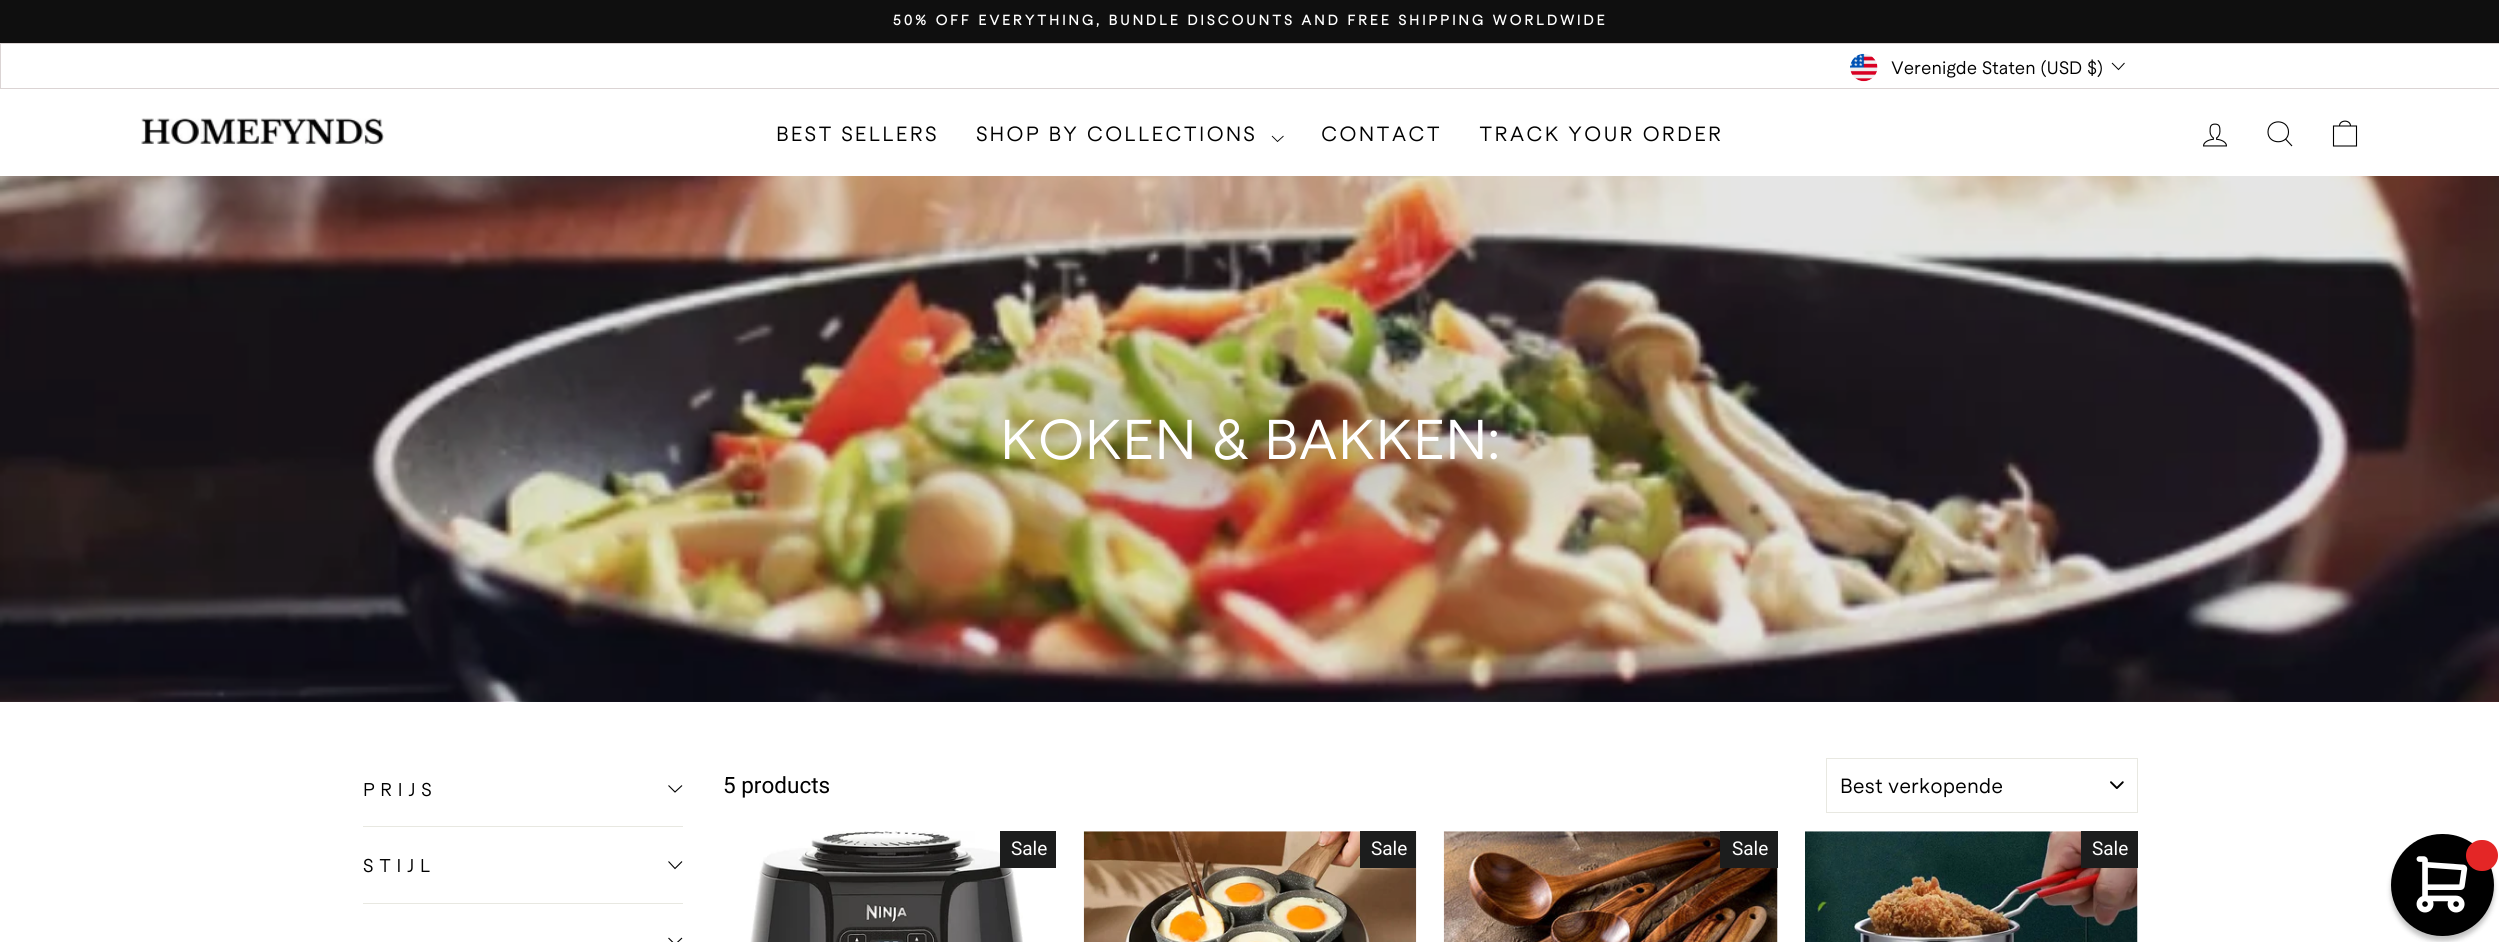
#include <cairo/cairo.h>
#include <math.h>
#include <stddef.h>


static void draw_spaced(cairo_t *cr, double x, double y, const char *s, double letter, double word) {
  cairo_move_to(cr, x, y);
  while (*s) {
    char ch[5] = {0};
    int n = 0;
    do ch[n++] = *s++; while ((*s & 0xC0) == 0x80);
    cairo_show_text(cr, ch);
    cairo_rel_move_to(cr, letter + word * (*ch == ' '), 0);
  }
}

static void rounded_rect(cairo_t *cr, double x, double y, double w, double h, double r) {
  cairo_new_sub_path(cr);
  cairo_arc(cr, x + w - r, y + h - r, r, 0, M_PI / 2);
  cairo_arc(cr, x + r, y + h - r, r, M_PI / 2, M_PI);
  cairo_arc(cr, x + r, y + r, r, M_PI, 1.5 * M_PI);
  cairo_arc(cr, x + w - r, y + r, r, 1.5 * M_PI, 2 * M_PI);
  cairo_close_path(cr);
}

static void draw_shadow(cairo_t *cr, double x, double y, double w, double h, double r, double blur, double alpha) {
  cairo_push_group_with_content(cr, CAIRO_CONTENT_ALPHA);
  cairo_set_operator(cr, CAIRO_OPERATOR_SOURCE);
  for (int i = 15; i >= -15 && fmin(w, h) + blur * i / 3 > 0; i -= 2) {
    double e = blur * i / 6;
    cairo_set_source_rgba(cr, 0, 0, 0, alpha * erfc((i - 1) / 8.5) / 2);
    rounded_rect(cr, x - e, y - e, w + 2 * e, h + 2 * e, fmax(0, fmin(r + e + blur * .6, fmin(w, h) / 2 + e)));
    cairo_fill(cr);
  }
  cairo_pattern_t *soft = cairo_pop_group(cr);
  cairo_mask(cr, soft);
  cairo_pattern_destroy(soft);
}

static void draw_image(cairo_t *cr, const char *path, double x, double y, double w, double h) {
  cairo_surface_t *image = cairo_image_surface_create_from_png(path);
  cairo_save(cr);
  cairo_set_source_surface(cr, image, x, y);
  cairo_rectangle(cr, x, y, w, h);
  cairo_fill(cr);
  cairo_restore(cr);
  cairo_surface_destroy(image);
}

static void draw(cairo_t *cr) {
  cairo_set_source_rgb(cr, 1, 1, 1);
  cairo_paint(cr);
  cairo_set_source_rgb(cr, 15 / 255.0, 15 / 255.0, 15 / 255.0);
  cairo_rectangle(cr, 0, 0, 2499, 43);
  cairo_fill(cr);
  cairo_rectangle(cr, 0.5, 43.5, 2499, 45);
  cairo_set_source_rgb(cr, 219 / 255.0, 212 / 255.0, 212 / 255.0);
  cairo_set_line_width(cr, 1);
  cairo_stroke(cr);
  draw_image(cr, "images/1.png", 1850, 53, 28, 29);
  cairo_new_path(cr);
  cairo_move_to(cr, 2112, 63);
  cairo_line_to(cr, 2118.5, 69.5);
  cairo_line_to(cr, 2124.5, 63);
  cairo_set_source_rgb(cr, 0, 0, 0);
  cairo_stroke(cr);
  draw_image(cr, "images/2.png", 141, 118, 243, 29);
  cairo_new_path(cr);
  cairo_move_to(cr, 1272, 136);
  cairo_line_to(cr, 1277.5, 141.5);
  cairo_line_to(cr, 1283.5, 136);
  cairo_set_line_width(cr, 0.9);
  cairo_stroke(cr);
  draw_image(cr, "images/3.png", 2203, 123, 24, 24);
  cairo_new_path(cr);
  cairo_move_to(cr, 2288.5, 132);
  cairo_curve_to(cr, 2288.5, 145, 2268, 145, 2268, 132);
  cairo_curve_to(cr, 2268, 118.5, 2288.5, 118.5, 2288.5, 132);
  cairo_close_path(cr);
  cairo_move_to(cr, 2292, 146);
  cairo_line_to(cr, 2285.5, 139);
  cairo_set_line_width(cr, 1.1);
  cairo_stroke(cr);
  cairo_new_path(cr);
  cairo_move_to(cr, 2333.5, 126);
  cairo_line_to(cr, 2356.5, 126);
  cairo_line_to(cr, 2356.5, 146);
  cairo_line_to(cr, 2333.5, 146);
  cairo_close_path(cr);
  cairo_move_to(cr, 2339.5, 126);
  cairo_curve_to(cr, 2339.5, 119.5, 2350.5, 119.5, 2350.5, 126);
  cairo_stroke(cr);
  draw_image(cr, "images/4.png", 0, 176, 2499, 526);
  cairo_new_path(cr);
  cairo_move_to(cr, 668.5, 785.5);
  cairo_line_to(cr, 675, 792);
  cairo_line_to(cr, 682, 785.5);
  cairo_stroke(cr);
  cairo_set_source_rgb(cr, 232 / 255.0, 232 / 255.0, 225 / 255.0);
  cairo_rectangle(cr, 363, 826, 320, 1);
  cairo_fill(cr);
  cairo_new_path(cr);
  cairo_move_to(cr, 668.5, 861.5);
  cairo_line_to(cr, 675, 868.5);
  cairo_line_to(cr, 682, 861.5);
  cairo_set_source_rgb(cr, 0, 0, 0);
  cairo_stroke(cr);
  cairo_set_source_rgb(cr, 232 / 255.0, 232 / 255.0, 225 / 255.0);
  cairo_rectangle(cr, 363, 903, 320, 1);
  cairo_fill(cr);
  cairo_new_path(cr);
  cairo_move_to(cr, 668.5, 938);
  cairo_line_to(cr, 675, 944.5);
  cairo_line_to(cr, 682, 938);
  cairo_set_source_rgb(cr, 0, 0, 0);
  cairo_stroke(cr);
  draw_image(cr, "images/5.png", 2110, 781, 14, 8);
  cairo_rectangle(cr, 1826.5, 758.5, 311, 54);
  cairo_set_source_rgb(cr, 232 / 255.0, 232 / 255.0, 225 / 255.0);
  cairo_set_line_width(cr, 1);
  cairo_stroke(cr);
  draw_image(cr, "images/6.png", 750, 831, 273, 111);
  cairo_set_source_rgb(cr, 28 / 255.0, 29 / 255.0, 29 / 255.0);
  cairo_rectangle(cr, 1000, 831, 56, 37);
  cairo_fill(cr);
  draw_image(cr, "images/7.png", 1083, 831, 334, 111);
  cairo_rectangle(cr, 1360, 831, 56, 37);
  cairo_fill(cr);
  draw_image(cr, "images/8.png", 1443, 831, 335, 111);
  cairo_rectangle(cr, 1720, 831, 58, 37);
  cairo_fill(cr);
  draw_image(cr, "images/9.png", 1805, 831, 333, 111);
  cairo_rectangle(cr, 2081, 831, 57, 37);
  cairo_fill(cr);
  cairo_set_source_rgb(cr, 0, 0, 0);
  draw_shadow(cr, 2391, 839, 103, 102, 51, 2.5, 0.25);
  cairo_set_source_rgb(cr, 0, 0, 0);
  rounded_rect(cr, 2391, 834, 103, 102, 51);
  cairo_fill(cr);
  cairo_set_source_rgb(cr, 228 / 255.0, 38 / 255.0, 38 / 255.0);
  rounded_rect(cr, 2466, 840, 32, 31, 15.5);
  cairo_fill(cr);
  draw_image(cr, "images/10.png", 2416, 856, 52, 57);
  cairo_select_font_face(cr, "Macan", CAIRO_FONT_SLANT_NORMAL, CAIRO_FONT_WEIGHT_BOLD);
  cairo_set_font_size(cr, 13.75);
  cairo_set_source_rgb(cr, 1, 1, 1);
  draw_spaced(cr, 893, 25, "50% OFF EVERYTHING, BUNDLE DISCOUNTS AND FREE SHIPPING WORLDWIDE", 2.75, 0);
  cairo_select_font_face(cr, "Macan", CAIRO_FONT_SLANT_NORMAL, CAIRO_FONT_WEIGHT_NORMAL);
  cairo_set_font_size(cr, 17.5);
  cairo_set_source_rgb(cr, 0, 0, 0);
  cairo_move_to(cr, 1891, 74);
  cairo_show_text(cr, "Verenigde Staten (USD $)");
  cairo_set_font_size(cr, 20);
  draw_spaced(cr, 776, 141, "BEST SELLERS", 2, 0);
  draw_spaced(cr, 976, 141, "SHOP BY COLLECTIONS", 2, 0);
  draw_spaced(cr, 1321, 141, "CONTACT", 2, 0);
  draw_spaced(cr, 1479, 141, "TRACK YOUR ORDER", 2, 0);
  cairo_set_font_size(cr, 54.4);
  cairo_set_source_rgb(cr, 1, 1, 1);
  cairo_move_to(cr, 1000, 459);
  cairo_show_text(cr, "KOKEN & BAKKEN:");
  cairo_set_font_size(cr, 18);
  cairo_set_source_rgb(cr, 0, 0, 0);
  draw_spaced(cr, 363, 796, "PRIJS", 5.5, 0);
  draw_spaced(cr, 363, 872, "STIJL", 5.5, 0);
  cairo_select_font_face(cr, "Roboto", CAIRO_FONT_SLANT_NORMAL, CAIRO_FONT_WEIGHT_NORMAL);
  cairo_set_font_size(cr, 22.5);
  cairo_move_to(cr, 723, 793);
  cairo_show_text(cr, "5 products");
  cairo_select_font_face(cr, "Macan", CAIRO_FONT_SLANT_NORMAL, CAIRO_FONT_WEIGHT_NORMAL);
  cairo_set_font_size(cr, 20);
  cairo_move_to(cr, 1840, 793);
  cairo_show_text(cr, "Best verkopende");
  cairo_select_font_face(cr, "Roboto", CAIRO_FONT_SLANT_NORMAL, CAIRO_FONT_WEIGHT_NORMAL);
  cairo_set_font_size(cr, 19);
  cairo_set_source_rgb(cr, 1, 1, 1);
  cairo_move_to(cr, 1011, 855);
  cairo_show_text(cr, "Sale");
  cairo_move_to(cr, 1371, 855);
  cairo_show_text(cr, "Sale");
  cairo_move_to(cr, 1732, 855);
  cairo_show_text(cr, "Sale");
  cairo_move_to(cr, 2092, 855);
  cairo_show_text(cr, "Sale");
}

int main(void) {
  cairo_surface_t *surface = cairo_image_surface_create(CAIRO_FORMAT_RGB24, 2499, 942);
  cairo_t *cr = cairo_create(surface);
  cairo_font_options_t *options = cairo_font_options_create();
  cairo_font_options_set_hint_metrics(options, CAIRO_HINT_METRICS_OFF);
  cairo_font_options_set_hint_style(options, CAIRO_HINT_STYLE_NONE);
  cairo_set_font_options(cr, options);
  cairo_set_miter_limit(cr, 4);
  draw(cr);
  cairo_surface_write_to_png(surface, "out.png");
  cairo_font_options_destroy(options);
  cairo_destroy(cr);
  cairo_surface_destroy(surface);
  return 0;
}
